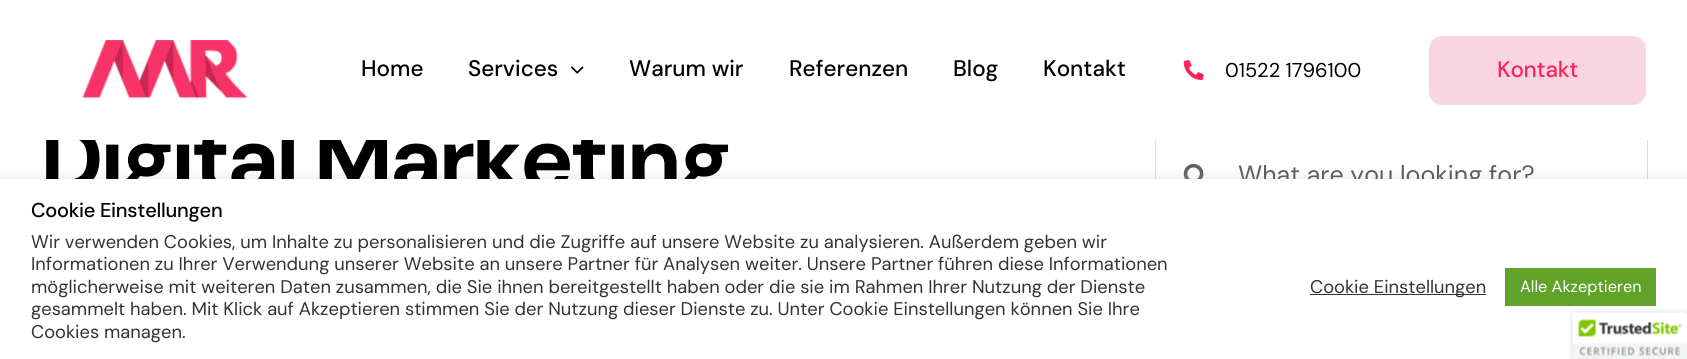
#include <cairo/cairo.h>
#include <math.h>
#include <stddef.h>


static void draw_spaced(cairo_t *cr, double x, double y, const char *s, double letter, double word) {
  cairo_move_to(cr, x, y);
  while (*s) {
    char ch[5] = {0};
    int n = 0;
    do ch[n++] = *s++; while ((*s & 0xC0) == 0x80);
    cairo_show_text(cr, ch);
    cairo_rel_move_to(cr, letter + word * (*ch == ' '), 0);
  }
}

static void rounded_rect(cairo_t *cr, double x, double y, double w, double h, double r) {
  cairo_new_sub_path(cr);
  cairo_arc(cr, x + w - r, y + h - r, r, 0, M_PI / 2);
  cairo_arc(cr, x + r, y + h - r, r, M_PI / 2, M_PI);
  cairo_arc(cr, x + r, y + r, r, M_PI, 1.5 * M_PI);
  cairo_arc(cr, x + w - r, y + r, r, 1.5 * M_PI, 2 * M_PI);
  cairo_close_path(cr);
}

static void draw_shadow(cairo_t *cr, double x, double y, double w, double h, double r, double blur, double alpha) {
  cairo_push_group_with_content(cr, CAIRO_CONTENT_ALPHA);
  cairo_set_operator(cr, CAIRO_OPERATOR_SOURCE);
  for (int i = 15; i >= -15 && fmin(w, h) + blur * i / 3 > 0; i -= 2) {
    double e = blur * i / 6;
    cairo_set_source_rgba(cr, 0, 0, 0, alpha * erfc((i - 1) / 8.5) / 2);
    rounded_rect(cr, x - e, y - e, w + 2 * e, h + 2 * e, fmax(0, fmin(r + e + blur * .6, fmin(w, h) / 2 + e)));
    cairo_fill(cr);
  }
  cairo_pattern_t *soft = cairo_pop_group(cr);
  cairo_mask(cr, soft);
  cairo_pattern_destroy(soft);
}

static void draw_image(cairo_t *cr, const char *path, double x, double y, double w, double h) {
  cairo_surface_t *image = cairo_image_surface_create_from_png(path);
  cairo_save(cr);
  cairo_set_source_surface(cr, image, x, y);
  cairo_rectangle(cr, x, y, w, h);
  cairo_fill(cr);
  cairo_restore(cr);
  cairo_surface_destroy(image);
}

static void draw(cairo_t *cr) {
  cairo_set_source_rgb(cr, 1, 1, 1);
  cairo_paint(cr);
  draw_image(cr, "images/1.png", 82, 40, 166, 58);
  draw_image(cr, "images/2.png", 571, 66, 13, 8);
  draw_image(cr, "images/3.png", 1183, 60, 21, 20);
  cairo_set_source_rgb(cr, 249 / 255.0, 214 / 255.0, 225 / 255.0);
  rounded_rect(cr, 1429, 36, 217, 69, 13);
  cairo_fill(cr);
  cairo_rectangle(cr, 1155.5, 134.5, 492, 81);
  cairo_set_source_rgb(cr, 220 / 255.0, 220 / 255.0, 220 / 255.0);
  cairo_set_line_width(cr, 1);
  cairo_stroke(cr);
  draw_image(cr, "images/4.png", 1183, 163, 21, 16);
  cairo_set_source_rgb(cr, 172 / 255.0, 171 / 255.0, 171 / 255.0);
  draw_shadow(cr, 0, 178, 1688, 181, 0, 6, 0.3);
  cairo_select_font_face(cr, "DM Sans Medium", CAIRO_FONT_SLANT_NORMAL, CAIRO_FONT_WEIGHT_NORMAL);
  cairo_set_font_size(cr, 22.5);
  cairo_set_source_rgb(cr, 0, 0, 0);
  cairo_move_to(cr, 361, 76);
  cairo_show_text(cr, "Home");
  cairo_move_to(cr, 468, 76);
  cairo_show_text(cr, "Services");
  cairo_move_to(cr, 629, 76);
  cairo_show_text(cr, "Warum wir");
  cairo_move_to(cr, 789, 76);
  cairo_show_text(cr, "Referenzen");
  cairo_move_to(cr, 953, 76);
  cairo_show_text(cr, "Blog");
  cairo_move_to(cr, 1043, 76);
  cairo_show_text(cr, "Kontakt");
  cairo_select_font_face(cr, "DM Sans", CAIRO_FONT_SLANT_NORMAL, CAIRO_FONT_WEIGHT_NORMAL);
  cairo_set_font_size(cr, 20);
  cairo_move_to(cr, 1225, 77);
  cairo_show_text(cr, "01522 1796100");
  cairo_select_font_face(cr, "DM Sans Medium", CAIRO_FONT_SLANT_NORMAL, CAIRO_FONT_WEIGHT_NORMAL);
  cairo_set_font_size(cr, 22.5);
  cairo_set_source_rgb(cr, 249 / 255.0, 34 / 255.0, 91 / 255.0);
  draw_spaced(cr, 1497, 77, "Kontakt", -0.25, 0);
  cairo_select_font_face(cr, "DM Sans", CAIRO_FONT_SLANT_NORMAL, CAIRO_FONT_WEIGHT_BOLD);
  cairo_set_font_size(cr, 90);
  cairo_set_source_rgb(cr, 0, 0, 0);
  draw_spaced(cr, 40, 190, "Digital Marketing", -3.75, 0);
  cairo_set_source_rgb(cr, 1, 1, 1);
  cairo_rectangle(cr, 46, 124, 1602, 16);
  cairo_fill(cr);
  cairo_select_font_face(cr, "DM Sans", CAIRO_FONT_SLANT_NORMAL, CAIRO_FONT_WEIGHT_NORMAL);
  cairo_set_font_size(cr, 25);
  cairo_set_source_rgb(cr, 94 / 255.0, 94 / 255.0, 94 / 255.0);
  cairo_move_to(cr, 1238, 183);
  cairo_show_text(cr, "What are you looking for?");
  cairo_set_source_rgb(cr, 1, 1, 1);
  cairo_rectangle(cr, 0, 179, 1687, 180);
  cairo_fill(cr);
  cairo_select_font_face(cr, "DM Sans Medium", CAIRO_FONT_SLANT_NORMAL, CAIRO_FONT_WEIGHT_NORMAL);
  cairo_set_font_size(cr, 20);
  cairo_set_source_rgb(cr, 0, 0, 0);
  draw_spaced(cr, 31, 217, "Cookie Einstellungen", -0.25, 0);
  cairo_select_font_face(cr, "DM Sans", CAIRO_FONT_SLANT_NORMAL, CAIRO_FONT_WEIGHT_NORMAL);
  cairo_set_font_size(cr, 18.33);
  cairo_set_source_rgb(cr, 51 / 255.0, 51 / 255.0, 51 / 255.0);
  cairo_move_to(cr, 31, 248);
  cairo_show_text(cr, "Wir verwenden Cookies, um Inhalte zu personalisieren und die Zugriffe auf unsere Website zu analysieren. Außerdem geben wir");
  cairo_move_to(cr, 31, 270);
  cairo_show_text(cr, "Informationen zu Ihrer Verwendung unserer Website an unsere Partner für Analysen weiter. Unsere Partner führen diese Informationen");
  cairo_move_to(cr, 31, 293);
  cairo_show_text(cr, "möglicherweise mit weiteren Daten zusammen, die Sie ihnen bereitgestellt haben oder die sie im Rahmen Ihrer Nutzung der Dienste");
  cairo_move_to(cr, 31, 315);
  cairo_show_text(cr, "gesammelt haben. Mit Klick auf Akzeptieren stimmen Sie der Nutzung dieser Dienste zu. Unter Cookie Einstellungen können Sie Ihre");
  cairo_move_to(cr, 31, 338);
  cairo_show_text(cr, "Cookies managen.");
  cairo_rectangle(cr, 1310, 294, 176, 1);
  cairo_fill(cr);
  cairo_move_to(cr, 1310, 293);
  cairo_show_text(cr, "Cookie Einstellungen");
  cairo_set_source_rgb(cr, 97 / 255.0, 162 / 255.0, 41 / 255.0);
  cairo_rectangle(cr, 1505, 268, 151, 38);
  cairo_fill(cr);
  cairo_set_font_size(cr, 16.25);
  cairo_set_source_rgb(cr, 1, 1, 1);
  cairo_move_to(cr, 1520, 292);
  cairo_show_text(cr, "Alle Akzeptieren");
  cairo_set_source_rgb(cr, 0, 0, 0);
  draw_shadow(cr, 1573, 313, 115, 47, 2.5, 3, 0.2);
  draw_image(cr, "images/5.png", 1572, 312, 115, 47);
}

int main(void) {
  cairo_surface_t *surface = cairo_image_surface_create(CAIRO_FORMAT_RGB24, 1687, 359);
  cairo_t *cr = cairo_create(surface);
  cairo_font_options_t *options = cairo_font_options_create();
  cairo_font_options_set_hint_metrics(options, CAIRO_HINT_METRICS_OFF);
  cairo_font_options_set_hint_style(options, CAIRO_HINT_STYLE_NONE);
  cairo_set_font_options(cr, options);
  cairo_set_miter_limit(cr, 4);
  draw(cr);
  cairo_surface_write_to_png(surface, "out.png");
  cairo_font_options_destroy(options);
  cairo_destroy(cr);
  cairo_surface_destroy(surface);
  return 0;
}
